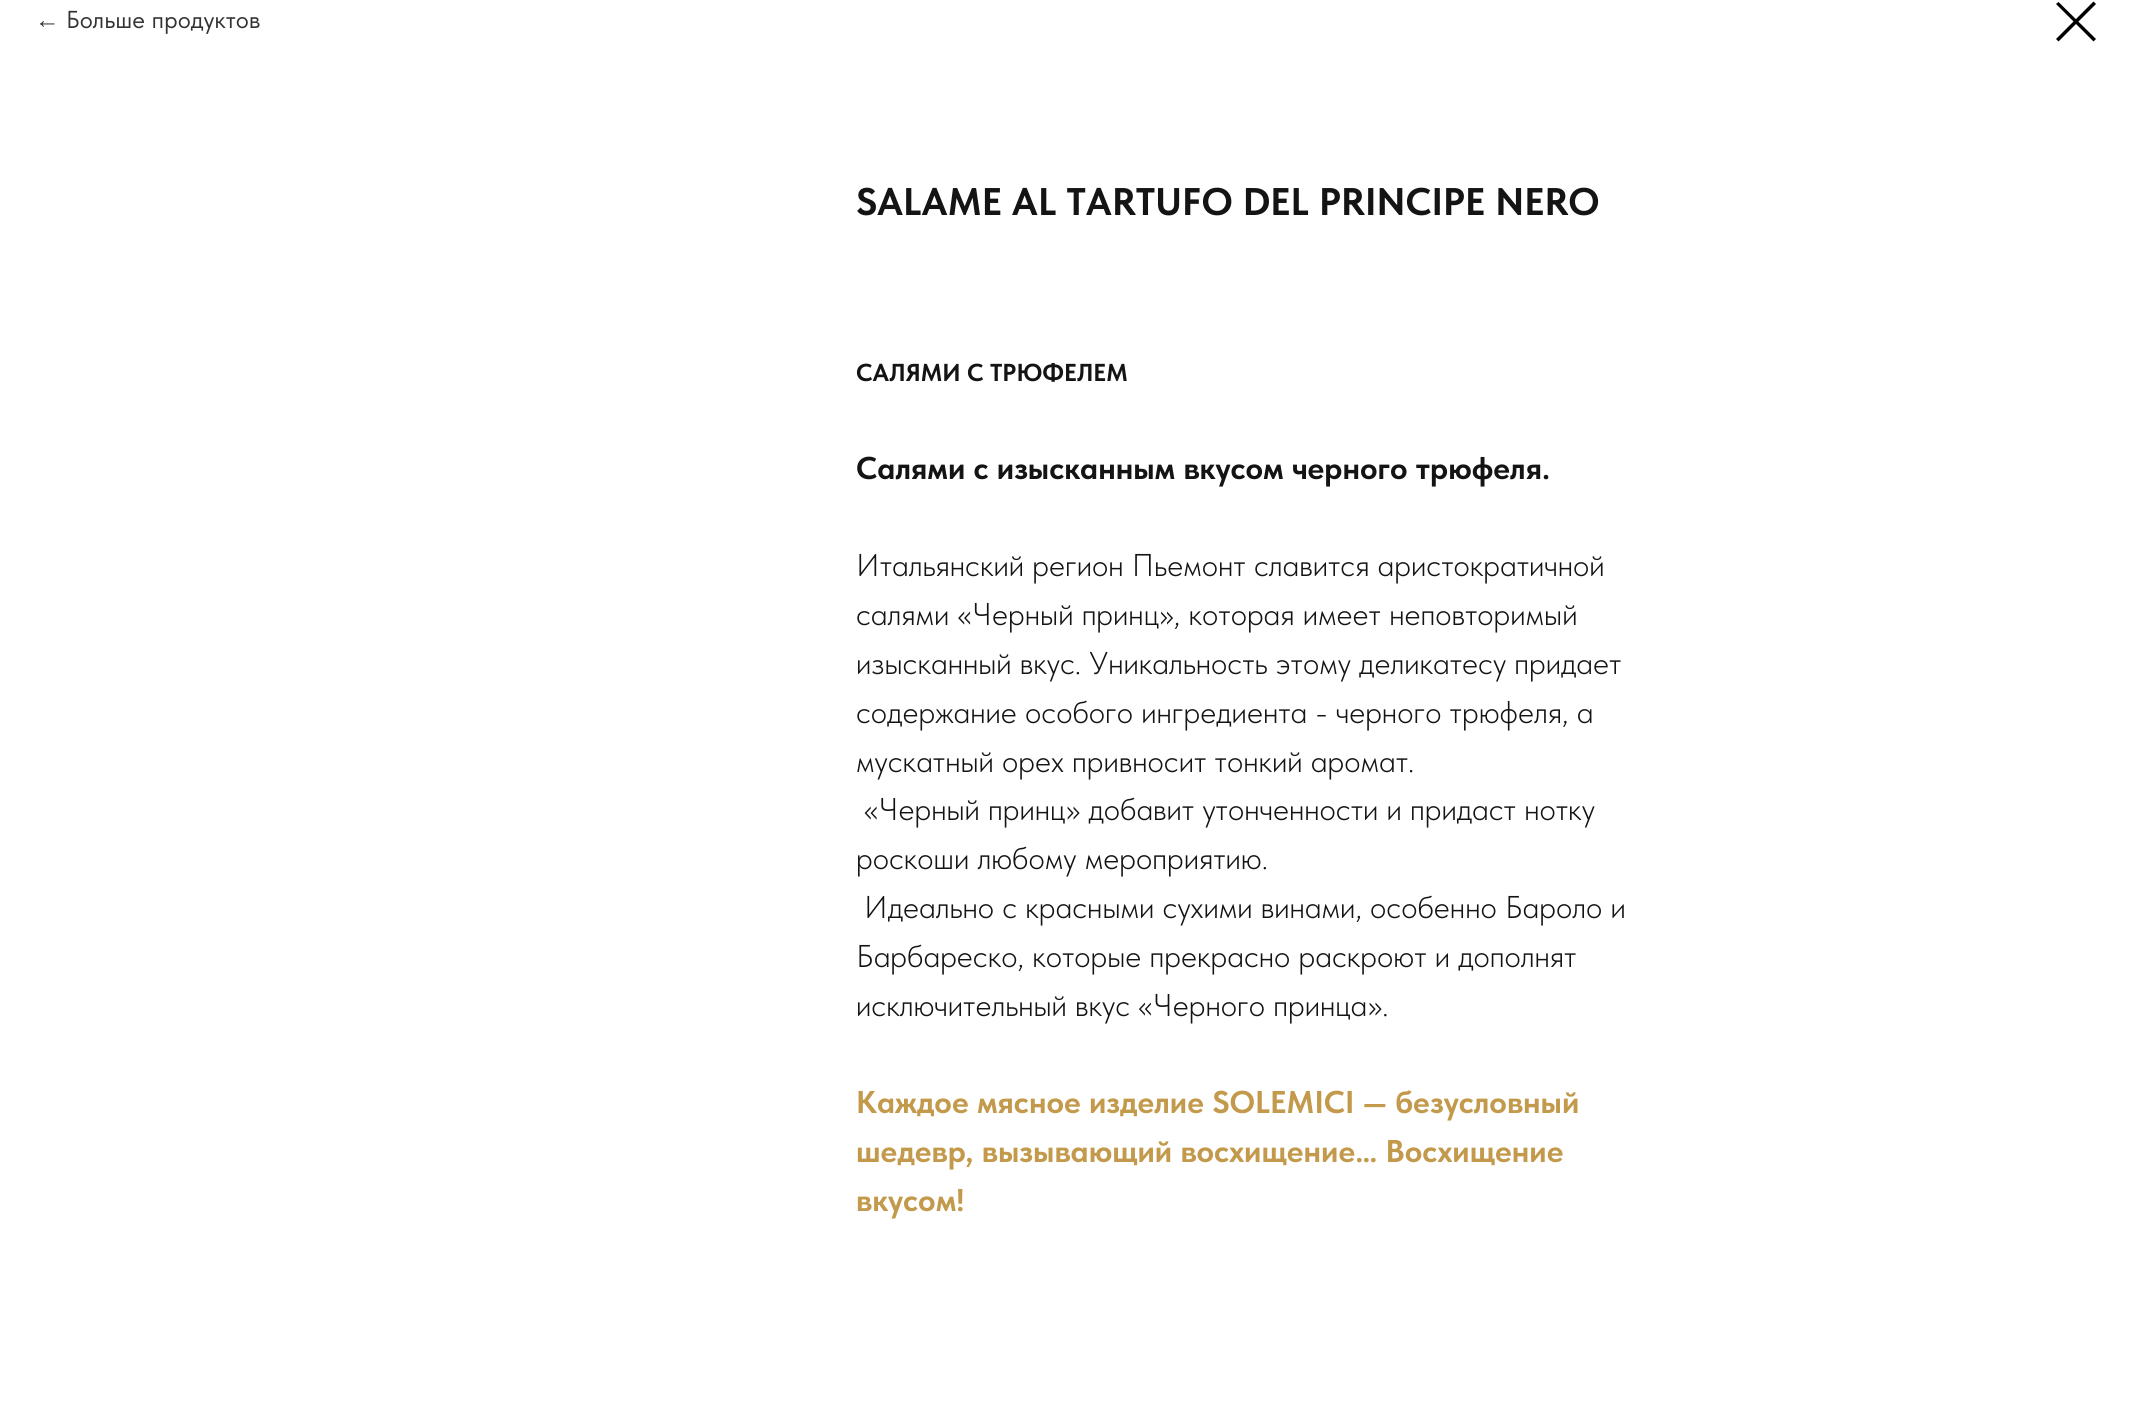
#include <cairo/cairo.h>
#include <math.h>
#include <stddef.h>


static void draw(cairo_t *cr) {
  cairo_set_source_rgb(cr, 1, 1, 1);
  cairo_paint(cr);
  cairo_set_source_rgb(cr, 0, 0, 0);
  cairo_set_fill_rule(cr, CAIRO_FILL_RULE_EVEN_ODD);
  cairo_new_path(cr);
  cairo_move_to(cr, 2056, 4);
  cairo_line_to(cr, 2058.5, 2);
  cairo_line_to(cr, 2096, 39);
  cairo_line_to(cr, 2093.5, 41.5);
  cairo_close_path(cr);
  cairo_fill(cr);
  cairo_new_path(cr);
  cairo_move_to(cr, 2093.5, 1.5);
  cairo_line_to(cr, 2096, 4);
  cairo_line_to(cr, 2058.5, 41.5);
  cairo_line_to(cr, 2056, 39);
  cairo_close_path(cr);
  cairo_fill(cr);
  cairo_select_font_face(cr, "Liberation Sans", CAIRO_FONT_SLANT_NORMAL, CAIRO_FONT_WEIGHT_NORMAL);
  cairo_set_font_size(cr, 24.5);
  cairo_set_source_rgb(cr, 51 / 255.0, 51 / 255.0, 51 / 255.0);
  cairo_move_to(cr, 35, 28);
  cairo_show_text(cr, "←");
  cairo_select_font_face(cr, "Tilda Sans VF", CAIRO_FONT_SLANT_NORMAL, CAIRO_FONT_WEIGHT_NORMAL);
  cairo_move_to(cr, 66, 28);
  cairo_show_text(cr, "Больше продуктов");
  cairo_select_font_face(cr, "Tilda Sans VF", CAIRO_FONT_SLANT_NORMAL, CAIRO_FONT_WEIGHT_BOLD);
  cairo_set_font_size(cr, 38.5);
  cairo_set_source_rgb(cr, 20 / 255.0, 20 / 255.0, 20 / 255.0);
  cairo_move_to(cr, 856, 215);
  cairo_show_text(cr, "SALAME AL TARTUFO DEL PRINCIPE NERO");
  cairo_set_font_size(cr, 24.5);
  cairo_move_to(cr, 856, 381);
  cairo_show_text(cr, "САЛЯМИ С ТРЮФЕЛЕМ");
  cairo_set_font_size(cr, 31.5);
  cairo_move_to(cr, 856, 479);
  cairo_show_text(cr, "Салями с изысканным вкусом черного трюфеля.");
  cairo_select_font_face(cr, "Tilda Sans VF Light", CAIRO_FONT_SLANT_NORMAL, CAIRO_FONT_WEIGHT_NORMAL);
  cairo_move_to(cr, 856, 576);
  cairo_show_text(cr, "Итальянский регион Пьемонт славится аристократичной");
  cairo_move_to(cr, 856, 625);
  cairo_show_text(cr, "салями «Черный принц», которая имеет неповторимый");
  cairo_move_to(cr, 856, 674);
  cairo_show_text(cr, "изысканный вкус. Уникальность этому деликатесу придает");
  cairo_move_to(cr, 856, 723);
  cairo_show_text(cr, "содержание особого ингредиента - черного трюфеля, а");
  cairo_move_to(cr, 856, 772);
  cairo_show_text(cr, "мускатный орех привносит тонкий аромат.");
  cairo_move_to(cr, 864, 820);
  cairo_show_text(cr, "«Черный принц» добавит утонченности и придаст нотку");
  cairo_move_to(cr, 856, 869);
  cairo_show_text(cr, "роскоши любому мероприятию.");
  cairo_move_to(cr, 864, 918);
  cairo_show_text(cr, "Идеально с красными сухими винами, особенно Бароло и");
  cairo_move_to(cr, 856, 967);
  cairo_show_text(cr, "Барбареско, которые прекрасно раскроют и дополнят");
  cairo_move_to(cr, 856, 1016);
  cairo_show_text(cr, "исключительный вкус «Черного принца».");
  cairo_select_font_face(cr, "Tilda Sans VF", CAIRO_FONT_SLANT_NORMAL, CAIRO_FONT_WEIGHT_BOLD);
  cairo_set_source_rgb(cr, 195 / 255.0, 154 / 255.0, 76 / 255.0);
  cairo_move_to(cr, 856, 1113);
  cairo_show_text(cr, "Каждое мясное изделие SOLEMICI — безусловный");
  cairo_move_to(cr, 856, 1162);
  cairo_show_text(cr, "шедевр, вызывающий восхищение… Восхищение");
  cairo_move_to(cr, 856, 1211);
  cairo_show_text(cr, "вкусом!");
}

int main(void) {
  cairo_surface_t *surface = cairo_image_surface_create(CAIRO_FORMAT_RGB24, 2131, 1427);
  cairo_t *cr = cairo_create(surface);
  cairo_font_options_t *options = cairo_font_options_create();
  cairo_font_options_set_hint_metrics(options, CAIRO_HINT_METRICS_OFF);
  cairo_font_options_set_hint_style(options, CAIRO_HINT_STYLE_NONE);
  cairo_set_font_options(cr, options);
  cairo_set_miter_limit(cr, 4);
  draw(cr);
  cairo_surface_write_to_png(surface, "out.png");
  cairo_font_options_destroy(options);
  cairo_destroy(cr);
  cairo_surface_destroy(surface);
  return 0;
}
